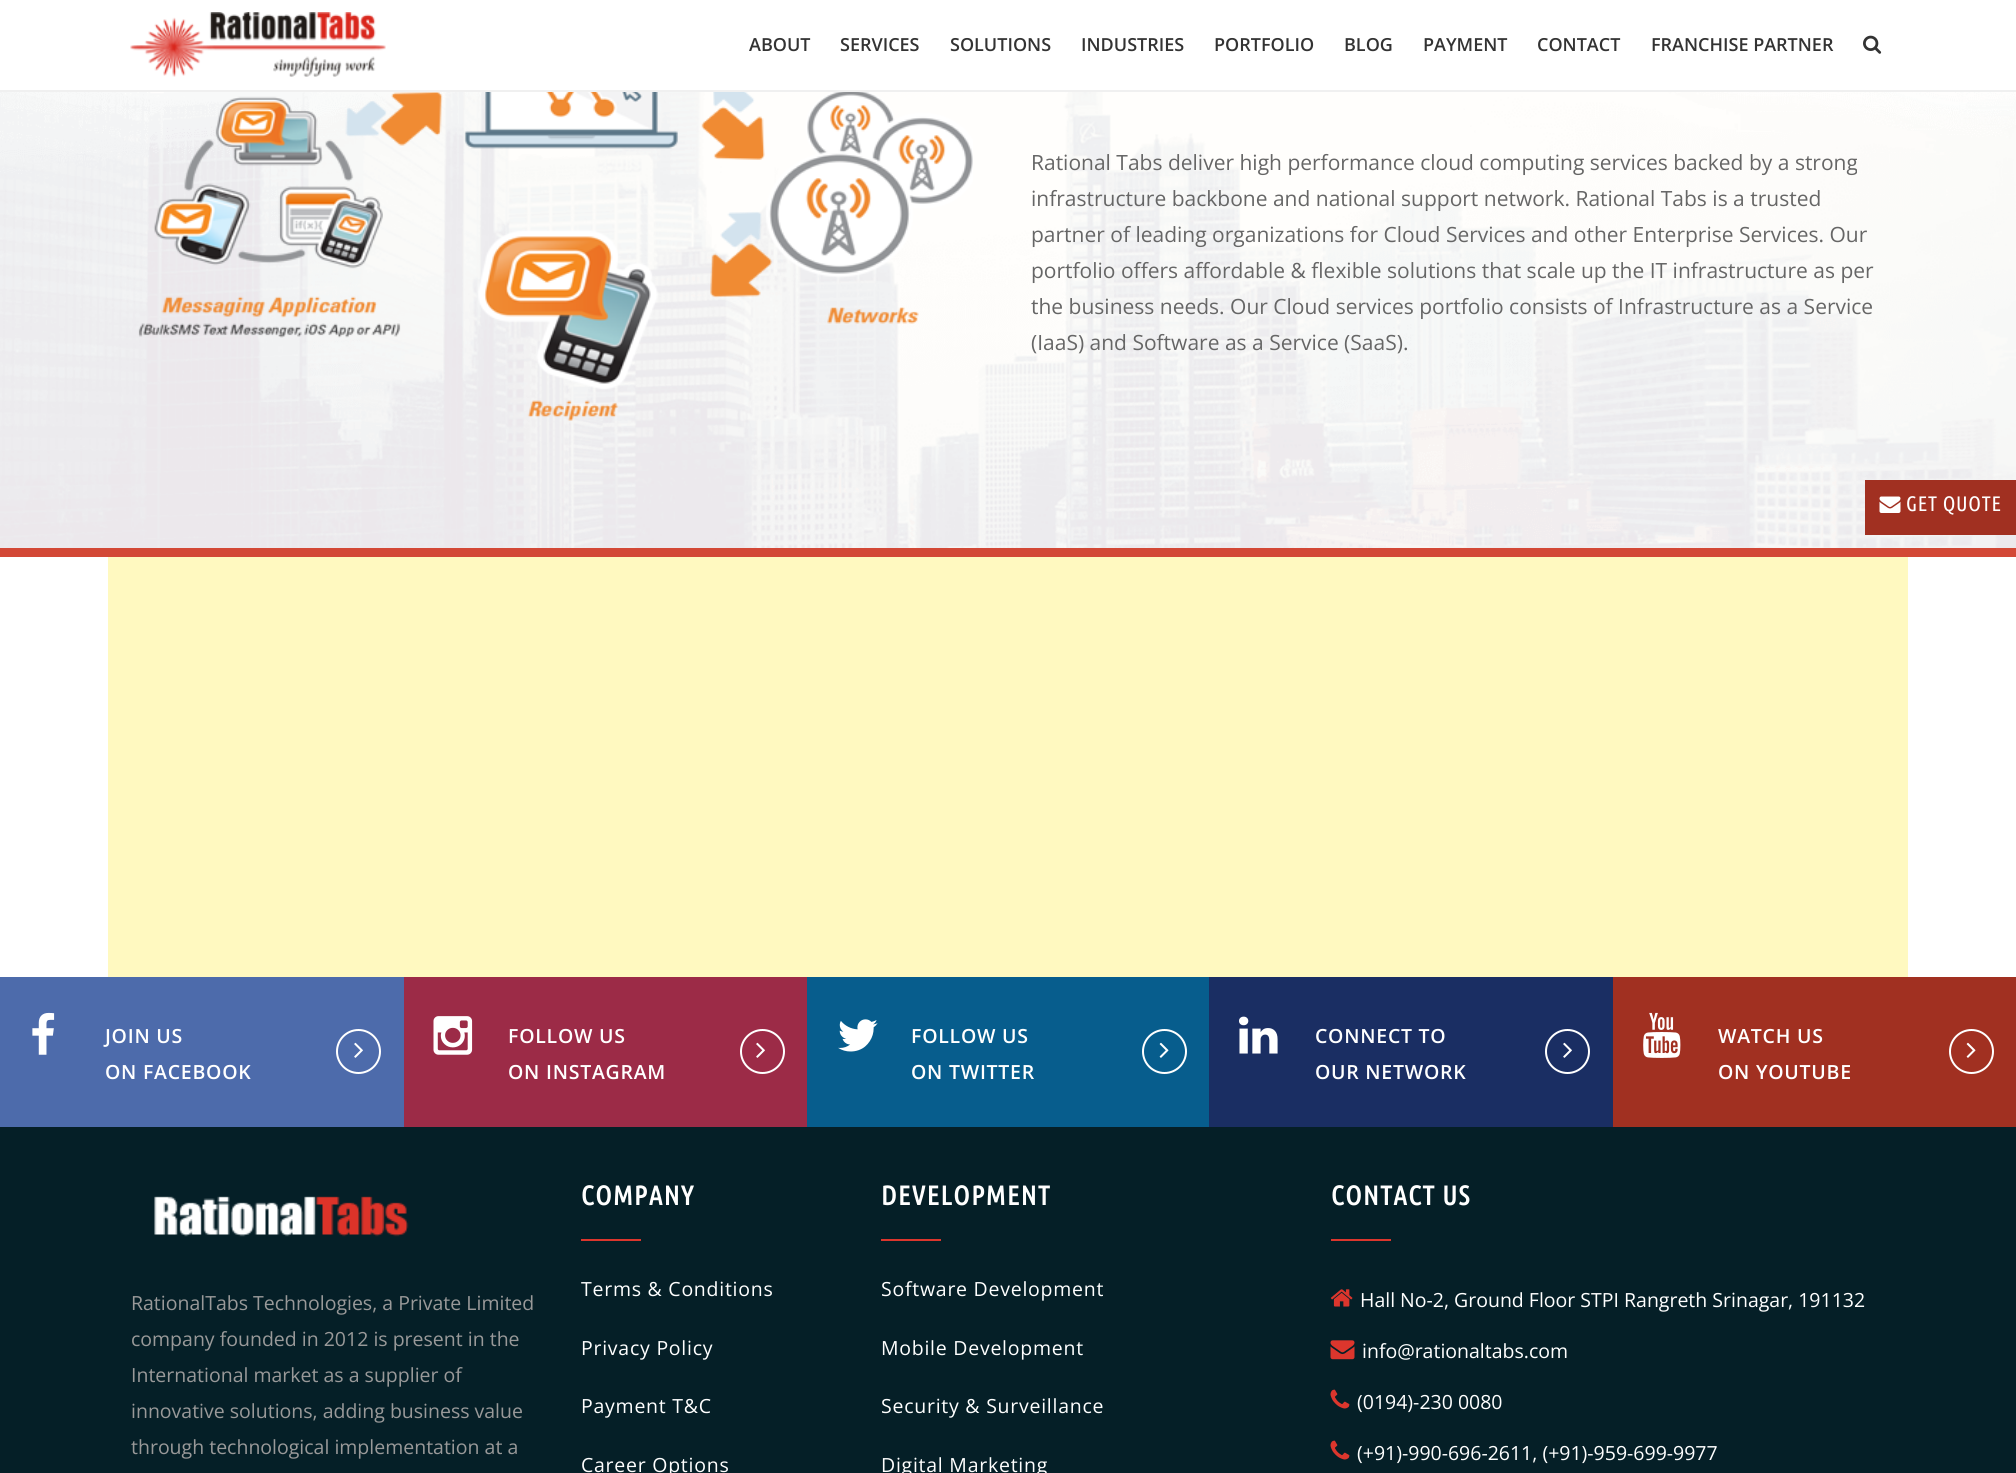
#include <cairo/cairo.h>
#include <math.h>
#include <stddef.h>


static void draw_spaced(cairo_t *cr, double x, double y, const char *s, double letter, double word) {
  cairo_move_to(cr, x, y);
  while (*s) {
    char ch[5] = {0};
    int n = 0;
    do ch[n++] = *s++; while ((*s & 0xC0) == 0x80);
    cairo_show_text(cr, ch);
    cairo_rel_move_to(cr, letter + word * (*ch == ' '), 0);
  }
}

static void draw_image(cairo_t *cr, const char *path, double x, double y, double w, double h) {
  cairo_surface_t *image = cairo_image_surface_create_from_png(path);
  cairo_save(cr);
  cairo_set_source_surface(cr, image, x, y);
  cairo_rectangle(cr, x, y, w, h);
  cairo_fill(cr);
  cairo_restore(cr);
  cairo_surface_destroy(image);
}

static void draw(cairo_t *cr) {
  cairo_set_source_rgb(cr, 1, 1, 1);
  cairo_paint(cr);
  cairo_set_source_rgb(cr, 240 / 255.0, 240 / 255.0, 240 / 255.0);
  cairo_rectangle(cr, 0, 90, 2016, 2);
  cairo_fill(cr);
  draw_image(cr, "images/1.png", 130, 12, 256, 65);
  draw_image(cr, "images/2.png", 1863, 35, 19, 19);
  draw_image(cr, "images/3.png", 0, 92, 2016, 456);
  cairo_set_source_rgb(cr, 211 / 255.0, 72 / 255.0, 54 / 255.0);
  cairo_rectangle(cr, 0, 548, 2016, 9);
  cairo_fill(cr);
  draw_image(cr, "images/4.png", 138, 92, 835, 329);
  cairo_set_source_rgb(cr, 1, 249 / 255.0, 192 / 255.0);
  cairo_rectangle(cr, 108, 557, 1800, 420);
  cairo_fill(cr);
  cairo_set_source_rgb(cr, 77 / 255.0, 107 / 255.0, 171 / 255.0);
  cairo_rectangle(cr, 0, 977, 404, 150);
  cairo_fill(cr);
  draw_image(cr, "images/5.png", 32, 1012, 23, 43);
  cairo_arc(cr, 358.5, 1051.5, 21.5, 0, 2 * M_PI);
  cairo_set_source_rgb(cr, 1, 1, 1);
  cairo_stroke(cr);
  draw_image(cr, "images/6.png", 354, 1042, 9, 16);
  cairo_set_source_rgb(cr, 156 / 255.0, 43 / 255.0, 71 / 255.0);
  cairo_rectangle(cr, 404, 977, 403, 150);
  cairo_fill(cr);
  draw_image(cr, "images/7.png", 433, 1016, 40, 39);
  cairo_arc(cr, 762.5, 1051.5, 21.5, 0, 2 * M_PI);
  cairo_set_source_rgb(cr, 1, 1, 1);
  cairo_stroke(cr);
  draw_image(cr, "images/8.png", 756, 1042, 9, 16);
  cairo_set_source_rgb(cr, 7 / 255.0, 93 / 255.0, 141 / 255.0);
  cairo_rectangle(cr, 807, 977, 402, 150);
  cairo_fill(cr);
  draw_image(cr, "images/9.png", 838, 1019, 40, 33);
  cairo_arc(cr, 1164.5, 1051.5, 21.5, 0, 2 * M_PI);
  cairo_set_source_rgb(cr, 1, 1, 1);
  cairo_stroke(cr);
  draw_image(cr, "images/10.png", 1159, 1042, 10, 16);
  cairo_set_source_rgb(cr, 26 / 255.0, 46 / 255.0, 99 / 255.0);
  cairo_rectangle(cr, 1209, 977, 404, 150);
  cairo_fill(cr);
  draw_image(cr, "images/11.png", 1239, 1016, 39, 38);
  cairo_arc(cr, 1567.5, 1051.5, 21.5, 0, 2 * M_PI);
  cairo_set_source_rgb(cr, 1, 1, 1);
  cairo_stroke(cr);
  draw_image(cr, "images/12.png", 1563, 1042, 9, 16);
  cairo_set_source_rgb(cr, 161 / 255.0, 48 / 255.0, 33 / 255.0);
  cairo_rectangle(cr, 1613, 977, 403, 150);
  cairo_fill(cr);
  draw_image(cr, "images/13.png", 1643, 1012, 38, 46);
  cairo_arc(cr, 1971.5, 1051.5, 21.5, 0, 2 * M_PI);
  cairo_set_source_rgb(cr, 1, 1, 1);
  cairo_stroke(cr);
  draw_image(cr, "images/14.png", 1966, 1042, 10, 16);
  cairo_set_source_rgb(cr, 5 / 255.0, 31 / 255.0, 39 / 255.0);
  cairo_rectangle(cr, 0, 1127, 2016, 346);
  cairo_fill(cr);
  draw_image(cr, "images/15.png", 154, 1196, 255, 41);
  cairo_set_source_rgb(cr, 220 / 255.0, 54 / 255.0, 45 / 255.0);
  cairo_rectangle(cr, 581, 1239, 60, 2);
  cairo_fill(cr);
  cairo_rectangle(cr, 881, 1239, 60, 2);
  cairo_fill(cr);
  cairo_rectangle(cr, 1331, 1239, 60, 2);
  cairo_fill(cr);
  draw_image(cr, "images/16.png", 1330, 1289, 23, 18);
  draw_image(cr, "images/17.png", 1330, 1340, 25, 20);
  draw_image(cr, "images/18.png", 1330, 1389, 20, 20);
  draw_image(cr, "images/18.png", 1330, 1440, 20, 20);
  cairo_set_source_rgb(cr, 161 / 255.0, 48 / 255.0, 33 / 255.0);
  cairo_rectangle(cr, 1865, 480, 151, 55);
  cairo_fill(cr);
  draw_image(cr, "images/19.png", 1879, 496, 22, 17);
  cairo_select_font_face(cr, "Open Sans SemiBold", CAIRO_FONT_SLANT_NORMAL, CAIRO_FONT_WEIGHT_NORMAL);
  cairo_set_font_size(cr, 18);
  cairo_set_source_rgb(cr, 51 / 255.0, 51 / 255.0, 51 / 255.0);
  cairo_move_to(cr, 749, 51);
  cairo_show_text(cr, "ABOUT");
  cairo_move_to(cr, 840, 51);
  cairo_show_text(cr, "SERVICES");
  cairo_move_to(cr, 950, 51);
  cairo_show_text(cr, "SOLUTIONS");
  cairo_move_to(cr, 1081, 51);
  cairo_show_text(cr, "INDUSTRIES");
  cairo_move_to(cr, 1214, 51);
  cairo_show_text(cr, "PORTFOLIO");
  cairo_move_to(cr, 1344, 51);
  cairo_show_text(cr, "BLOG");
  cairo_move_to(cr, 1423, 51);
  cairo_show_text(cr, "PAYMENT");
  cairo_move_to(cr, 1537, 51);
  cairo_show_text(cr, "CONTACT");
  cairo_move_to(cr, 1651, 51);
  cairo_show_text(cr, "FRANCHISE PARTNER");
  cairo_select_font_face(cr, "Open Sans", CAIRO_FONT_SLANT_NORMAL, CAIRO_FONT_WEIGHT_NORMAL);
  cairo_set_font_size(cr, 21);
  cairo_set_source_rgb(cr, 102 / 255.0, 102 / 255.0, 102 / 255.0);
  cairo_move_to(cr, 1031, 170);
  cairo_show_text(cr, "Rational Tabs deliver high performance cloud computing services backed by a strong");
  cairo_move_to(cr, 1031, 206);
  cairo_show_text(cr, "infrastructure backbone and national support network. Rational Tabs is a trusted");
  cairo_move_to(cr, 1031, 242);
  cairo_show_text(cr, "partner of leading organizations for Cloud Services and other Enterprise Services. Our");
  cairo_move_to(cr, 1031, 278);
  cairo_show_text(cr, "portfolio offers affordable & flexible solutions that scale up the IT infrastructure as per");
  cairo_move_to(cr, 1031, 314);
  cairo_show_text(cr, "the business needs. Our Cloud services portfolio consists of Infrastructure as a Service");
  cairo_move_to(cr, 1031, 350);
  cairo_show_text(cr, "(IaaS) and Software as a Service (SaaS).");
  cairo_select_font_face(cr, "Open Sans SemiBold", CAIRO_FONT_SLANT_NORMAL, CAIRO_FONT_WEIGHT_NORMAL);
  cairo_set_font_size(cr, 19.5);
  cairo_set_source_rgb(cr, 1, 1, 1);
  draw_spaced(cr, 105, 1043, "JOIN US", 0.75, 0);
  draw_spaced(cr, 105, 1079, "ON FACEBOOK", 0.75, 0);
  draw_spaced(cr, 508, 1043, "FOLLOW US", 0.75, 0);
  draw_spaced(cr, 508, 1079, "ON INSTAGRAM", 0.75, 0);
  draw_spaced(cr, 911, 1043, "FOLLOW US", 0.75, 0);
  draw_spaced(cr, 911, 1079, "ON TWITTER", 0.75, 0);
  draw_spaced(cr, 1315, 1043, "CONNECT TO", 0.75, 0);
  draw_spaced(cr, 1315, 1079, "OUR NETWORK", 0.75, 0);
  draw_spaced(cr, 1718, 1043, "WATCH US", 0.75, 0);
  draw_spaced(cr, 1718, 1079, "ON YOUTUBE", 0.75, 0);
  cairo_select_font_face(cr, "Open Sans", CAIRO_FONT_SLANT_NORMAL, CAIRO_FONT_WEIGHT_NORMAL);
  cairo_set_source_rgb(cr, 153 / 255.0, 153 / 255.0, 153 / 255.0);
  cairo_move_to(cr, 131, 1310);
  cairo_show_text(cr, "RationalTabs Technologies, a Private Limited");
  cairo_move_to(cr, 131, 1346);
  cairo_show_text(cr, "company founded in 2012 is present in the");
  cairo_move_to(cr, 131, 1382);
  cairo_show_text(cr, "International market as a supplier of");
  cairo_move_to(cr, 131, 1418);
  cairo_show_text(cr, "innovative solutions, adding business value");
  cairo_move_to(cr, 131, 1454);
  cairo_show_text(cr, "through technological implementation at a");
  cairo_select_font_face(cr, "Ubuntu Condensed", CAIRO_FONT_SLANT_NORMAL, CAIRO_FONT_WEIGHT_BOLD);
  cairo_set_font_size(cr, 27);
  cairo_set_source_rgb(cr, 1, 1, 1);
  draw_spaced(cr, 581, 1205, "COMPANY", 1.5, 0);
  cairo_select_font_face(cr, "Open Sans", CAIRO_FONT_SLANT_NORMAL, CAIRO_FONT_WEIGHT_NORMAL);
  cairo_set_font_size(cr, 19.5);
  draw_spaced(cr, 581, 1296, "Terms & Conditions", 0.75, 0);
  draw_spaced(cr, 581, 1355, "Privacy Policy", 0.75, 0);
  draw_spaced(cr, 581, 1413, "Payment T&C", 0.75, 0);
  draw_spaced(cr, 581, 1472, "Career Options", 0.75, 0);
  cairo_select_font_face(cr, "Ubuntu Condensed", CAIRO_FONT_SLANT_NORMAL, CAIRO_FONT_WEIGHT_BOLD);
  cairo_set_font_size(cr, 27);
  draw_spaced(cr, 881, 1205, "DEVELOPMENT", 1.5, 0);
  cairo_select_font_face(cr, "Open Sans", CAIRO_FONT_SLANT_NORMAL, CAIRO_FONT_WEIGHT_NORMAL);
  cairo_set_font_size(cr, 19.5);
  draw_spaced(cr, 881, 1296, "Software Development", 0.75, 0);
  draw_spaced(cr, 881, 1355, "Mobile Development", 0.75, 0);
  draw_spaced(cr, 881, 1413, "Security & Surveillance", 0.75, 0);
  draw_spaced(cr, 881, 1472, "Digital Marketing", 0.75, 0);
  cairo_select_font_face(cr, "Ubuntu Condensed", CAIRO_FONT_SLANT_NORMAL, CAIRO_FONT_WEIGHT_BOLD);
  cairo_set_font_size(cr, 27);
  draw_spaced(cr, 1331, 1205, "CONTACT US", 1.5, 0);
  cairo_select_font_face(cr, "Open Sans", CAIRO_FONT_SLANT_NORMAL, CAIRO_FONT_WEIGHT_NORMAL);
  cairo_set_font_size(cr, 19.5);
  cairo_move_to(cr, 1360, 1307);
  cairo_show_text(cr, "Hall No-2, Ground Floor STPI Rangreth Srinagar, 191132");
  cairo_move_to(cr, 1362, 1358);
  cairo_show_text(cr, "info@rationaltabs.com");
  cairo_move_to(cr, 1357, 1409);
  cairo_show_text(cr, "(0194)-230 0080");
  cairo_move_to(cr, 1357, 1460);
  cairo_show_text(cr, "(+91)-990-696-2611, (+91)-959-699-9977");
  cairo_select_font_face(cr, "Ubuntu Condensed", CAIRO_FONT_SLANT_NORMAL, CAIRO_FONT_WEIGHT_NORMAL);
  cairo_set_font_size(cr, 21);
  draw_spaced(cr, 1906, 511, "GET QUOTE", 0.75, 0);
}

int main(void) {
  cairo_surface_t *surface = cairo_image_surface_create(CAIRO_FORMAT_RGB24, 2016, 1473);
  cairo_t *cr = cairo_create(surface);
  cairo_font_options_t *options = cairo_font_options_create();
  cairo_font_options_set_hint_metrics(options, CAIRO_HINT_METRICS_OFF);
  cairo_font_options_set_hint_style(options, CAIRO_HINT_STYLE_NONE);
  cairo_set_font_options(cr, options);
  cairo_set_miter_limit(cr, 4);
  draw(cr);
  cairo_surface_write_to_png(surface, "out.png");
  cairo_font_options_destroy(options);
  cairo_destroy(cr);
  cairo_surface_destroy(surface);
  return 0;
}
